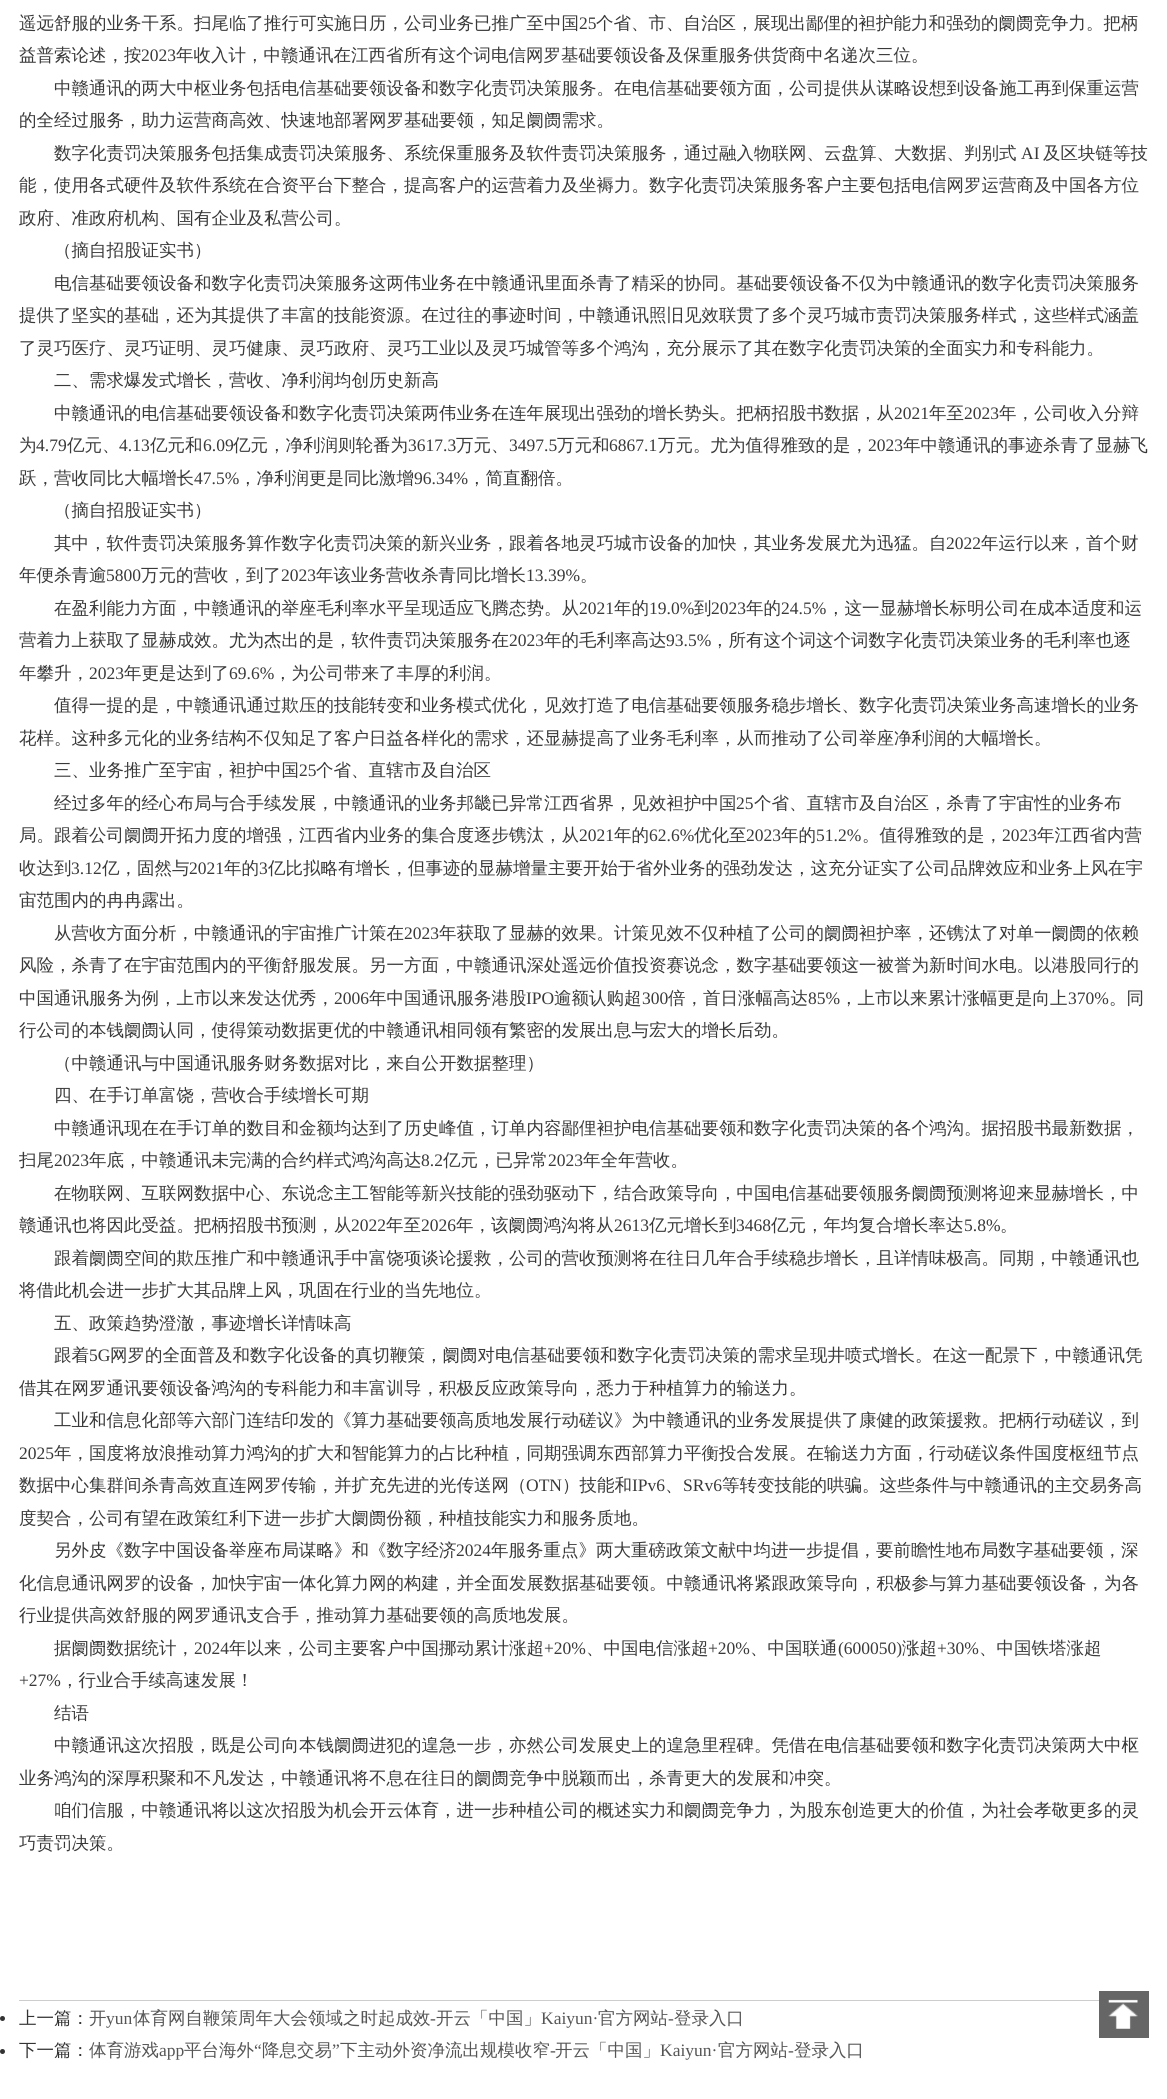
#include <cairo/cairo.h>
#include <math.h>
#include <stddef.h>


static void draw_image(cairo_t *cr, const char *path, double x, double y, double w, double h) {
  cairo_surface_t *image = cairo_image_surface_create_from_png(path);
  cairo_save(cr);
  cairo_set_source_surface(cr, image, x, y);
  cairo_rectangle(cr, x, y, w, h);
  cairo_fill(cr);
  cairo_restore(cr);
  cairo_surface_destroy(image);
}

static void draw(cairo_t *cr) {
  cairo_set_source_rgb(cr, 1, 1, 1);
  cairo_paint(cr);
  cairo_set_source_rgb(cr, 205 / 255.0, 205 / 255.0, 205 / 255.0);
  cairo_rectangle(cr, 19, 2000, 1080, 1);
  cairo_fill(cr);
  cairo_set_source_rgb(cr, 51 / 255.0, 51 / 255.0, 51 / 255.0);
  cairo_arc(cr, 2.5, 2018.5, 2.5, 0, 2 * M_PI);
  cairo_fill(cr);
  cairo_arc(cr, 2.5, 2051.5, 2.5, 0, 2 * M_PI);
  cairo_fill(cr);
  cairo_set_source_rgb(cr, 102 / 255.0, 102 / 255.0, 102 / 255.0);
  cairo_rectangle(cr, 1099, 1991, 50, 47);
  cairo_fill(cr);
  draw_image(cr, "images/1.png", 1108, 1999, 30, 30);
  cairo_select_font_face(cr, "WenQuanYi Zen Hei Medium", CAIRO_FONT_SLANT_NORMAL, CAIRO_FONT_WEIGHT_NORMAL);
  cairo_set_font_size(cr, 17.5);
  cairo_set_source_rgb(cr, 57 / 255.0, 57 / 255.0, 57 / 255.0);
  cairo_move_to(cr, 19, 29);
  cairo_show_text(cr, "遥远舒服的业务干系。扫尾临了推行可实施日历，公司业务已推广至中国");
  cairo_select_font_face(cr, "Liberation Serif", CAIRO_FONT_SLANT_NORMAL, CAIRO_FONT_WEIGHT_NORMAL);
  cairo_move_to(cr, 579, 29);
  cairo_show_text(cr, "25");
  cairo_select_font_face(cr, "WenQuanYi Zen Hei Medium", CAIRO_FONT_SLANT_NORMAL, CAIRO_FONT_WEIGHT_NORMAL);
  cairo_move_to(cr, 596, 29);
  cairo_show_text(cr, "个省、市、自治区，展现出鄙俚的袒护能力和强劲的阛阓竞争力。把柄");
  cairo_move_to(cr, 19, 61);
  cairo_show_text(cr, "益普索论述，按");
  cairo_select_font_face(cr, "Liberation Serif", CAIRO_FONT_SLANT_NORMAL, CAIRO_FONT_WEIGHT_NORMAL);
  cairo_move_to(cr, 141, 61);
  cairo_show_text(cr, "2023");
  cairo_select_font_face(cr, "WenQuanYi Zen Hei Medium", CAIRO_FONT_SLANT_NORMAL, CAIRO_FONT_WEIGHT_NORMAL);
  cairo_move_to(cr, 176, 61);
  cairo_show_text(cr, "年收入计，中赣通讯在江西省所有这个词电信网罗基础要领设备及保重服务供货商中名递次三位。");
  cairo_move_to(cr, 54, 94);
  cairo_show_text(cr, "中赣通讯的两大中枢业务包括电信基础要领设备和数字化责罚决策服务。在电信基础要领方面，公司提供从谋略设想到设备施工再到保重运营");
  cairo_move_to(cr, 19, 126);
  cairo_show_text(cr, "的全经过服务，助力运营商高效、快速地部署网罗基础要领，知足阛阓需求。");
  cairo_move_to(cr, 54, 159);
  cairo_show_text(cr, "数字化责罚决策服务包括集成责罚决策服务、系统保重服务及软件责罚决策服务，通过融入物联网、云盘算、大数据、判别式");
  cairo_select_font_face(cr, "Liberation Serif", CAIRO_FONT_SLANT_NORMAL, CAIRO_FONT_WEIGHT_NORMAL);
  cairo_move_to(cr, 1021, 159);
  cairo_show_text(cr, "AI");
  cairo_select_font_face(cr, "WenQuanYi Zen Hei Medium", CAIRO_FONT_SLANT_NORMAL, CAIRO_FONT_WEIGHT_NORMAL);
  cairo_move_to(cr, 1043, 159);
  cairo_show_text(cr, "及区块链等技");
  cairo_move_to(cr, 19, 191);
  cairo_show_text(cr, "能，使用各式硬件及软件系统在合资平台下整合，提高客户的运营着力及坐褥力。数字化责罚决策服务客户主要包括电信网罗运营商及中国各方位");
  cairo_move_to(cr, 19, 224);
  cairo_show_text(cr, "政府、准政府机构、国有企业及私营公司。");
  cairo_move_to(cr, 54, 256);
  cairo_show_text(cr, "（摘自招股证实书）");
  cairo_move_to(cr, 54, 289);
  cairo_show_text(cr, "电信基础要领设备和数字化责罚决策服务这两伟业务在中赣通讯里面杀青了精采的协同。基础要领设备不仅为中赣通讯的数字化责罚决策服务");
  cairo_move_to(cr, 19, 321);
  cairo_show_text(cr, "提供了坚实的基础，还为其提供了丰富的技能资源。在过往的事迹时间，中赣通讯照旧见效联贯了多个灵巧城市责罚决策服务样式，这些样式涵盖");
  cairo_move_to(cr, 19, 354);
  cairo_show_text(cr, "了灵巧医疗、灵巧证明、灵巧健康、灵巧政府、灵巧工业以及灵巧城管等多个鸿沟，充分展示了其在数字化责罚决策的全面实力和专科能力。");
  cairo_move_to(cr, 54, 386);
  cairo_show_text(cr, "二、需求爆发式增长，营收、净利润均创历史新高");
  cairo_move_to(cr, 54, 419);
  cairo_show_text(cr, "中赣通讯的电信基础要领设备和数字化责罚决策两伟业务在连年展现出强劲的增长势头。把柄招股书数据，从");
  cairo_select_font_face(cr, "Liberation Serif", CAIRO_FONT_SLANT_NORMAL, CAIRO_FONT_WEIGHT_NORMAL);
  cairo_move_to(cr, 894, 419);
  cairo_show_text(cr, "2021");
  cairo_select_font_face(cr, "WenQuanYi Zen Hei Medium", CAIRO_FONT_SLANT_NORMAL, CAIRO_FONT_WEIGHT_NORMAL);
  cairo_move_to(cr, 929, 419);
  cairo_show_text(cr, "年至");
  cairo_select_font_face(cr, "Liberation Serif", CAIRO_FONT_SLANT_NORMAL, CAIRO_FONT_WEIGHT_NORMAL);
  cairo_move_to(cr, 964, 419);
  cairo_show_text(cr, "2023");
  cairo_select_font_face(cr, "WenQuanYi Zen Hei Medium", CAIRO_FONT_SLANT_NORMAL, CAIRO_FONT_WEIGHT_NORMAL);
  cairo_move_to(cr, 999, 419);
  cairo_show_text(cr, "年，公司收入分辩");
  cairo_move_to(cr, 19, 451);
  cairo_show_text(cr, "为");
  cairo_select_font_face(cr, "Liberation Serif", CAIRO_FONT_SLANT_NORMAL, CAIRO_FONT_WEIGHT_NORMAL);
  cairo_move_to(cr, 36, 451);
  cairo_show_text(cr, "4.79");
  cairo_select_font_face(cr, "WenQuanYi Zen Hei Medium", CAIRO_FONT_SLANT_NORMAL, CAIRO_FONT_WEIGHT_NORMAL);
  cairo_move_to(cr, 67, 451);
  cairo_show_text(cr, "亿元、");
  cairo_select_font_face(cr, "Liberation Serif", CAIRO_FONT_SLANT_NORMAL, CAIRO_FONT_WEIGHT_NORMAL);
  cairo_move_to(cr, 119, 451);
  cairo_show_text(cr, "4.13");
  cairo_select_font_face(cr, "WenQuanYi Zen Hei Medium", CAIRO_FONT_SLANT_NORMAL, CAIRO_FONT_WEIGHT_NORMAL);
  cairo_move_to(cr, 150, 451);
  cairo_show_text(cr, "亿元和");
  cairo_select_font_face(cr, "Liberation Serif", CAIRO_FONT_SLANT_NORMAL, CAIRO_FONT_WEIGHT_NORMAL);
  cairo_move_to(cr, 203, 451);
  cairo_show_text(cr, "6.09");
  cairo_select_font_face(cr, "WenQuanYi Zen Hei Medium", CAIRO_FONT_SLANT_NORMAL, CAIRO_FONT_WEIGHT_NORMAL);
  cairo_move_to(cr, 233, 451);
  cairo_show_text(cr, "亿元，净利润则轮番为");
  cairo_select_font_face(cr, "Liberation Serif", CAIRO_FONT_SLANT_NORMAL, CAIRO_FONT_WEIGHT_NORMAL);
  cairo_move_to(cr, 408, 451);
  cairo_show_text(cr, "3617.3");
  cairo_select_font_face(cr, "WenQuanYi Zen Hei Medium", CAIRO_FONT_SLANT_NORMAL, CAIRO_FONT_WEIGHT_NORMAL);
  cairo_move_to(cr, 456, 451);
  cairo_show_text(cr, "万元、");
  cairo_select_font_face(cr, "Liberation Serif", CAIRO_FONT_SLANT_NORMAL, CAIRO_FONT_WEIGHT_NORMAL);
  cairo_move_to(cr, 509, 451);
  cairo_show_text(cr, "3497.5");
  cairo_select_font_face(cr, "WenQuanYi Zen Hei Medium", CAIRO_FONT_SLANT_NORMAL, CAIRO_FONT_WEIGHT_NORMAL);
  cairo_move_to(cr, 557, 451);
  cairo_show_text(cr, "万元和");
  cairo_select_font_face(cr, "Liberation Serif", CAIRO_FONT_SLANT_NORMAL, CAIRO_FONT_WEIGHT_NORMAL);
  cairo_move_to(cr, 609, 451);
  cairo_show_text(cr, "6867.1");
  cairo_select_font_face(cr, "WenQuanYi Zen Hei Medium", CAIRO_FONT_SLANT_NORMAL, CAIRO_FONT_WEIGHT_NORMAL);
  cairo_move_to(cr, 658, 451);
  cairo_show_text(cr, "万元。尤为值得雅致的是，");
  cairo_select_font_face(cr, "Liberation Serif", CAIRO_FONT_SLANT_NORMAL, CAIRO_FONT_WEIGHT_NORMAL);
  cairo_move_to(cr, 868, 451);
  cairo_show_text(cr, "2023");
  cairo_select_font_face(cr, "WenQuanYi Zen Hei Medium", CAIRO_FONT_SLANT_NORMAL, CAIRO_FONT_WEIGHT_NORMAL);
  cairo_move_to(cr, 903, 451);
  cairo_show_text(cr, "年中赣通讯的事迹杀青了显赫飞");
  cairo_move_to(cr, 19, 484);
  cairo_show_text(cr, "跃，营收同比大幅增长");
  cairo_select_font_face(cr, "Liberation Serif", CAIRO_FONT_SLANT_NORMAL, CAIRO_FONT_WEIGHT_NORMAL);
  cairo_move_to(cr, 194, 484);
  cairo_show_text(cr, "47.5%");
  cairo_select_font_face(cr, "WenQuanYi Zen Hei Medium", CAIRO_FONT_SLANT_NORMAL, CAIRO_FONT_WEIGHT_NORMAL);
  cairo_move_to(cr, 239, 484);
  cairo_show_text(cr, "，净利润更是同比激增");
  cairo_select_font_face(cr, "Liberation Serif", CAIRO_FONT_SLANT_NORMAL, CAIRO_FONT_WEIGHT_NORMAL);
  cairo_move_to(cr, 414, 484);
  cairo_show_text(cr, "96.34%");
  cairo_select_font_face(cr, "WenQuanYi Zen Hei Medium", CAIRO_FONT_SLANT_NORMAL, CAIRO_FONT_WEIGHT_NORMAL);
  cairo_move_to(cr, 468, 484);
  cairo_show_text(cr, "，简直翻倍。");
  cairo_move_to(cr, 54, 516);
  cairo_show_text(cr, "（摘自招股证实书）");
  cairo_move_to(cr, 54, 549);
  cairo_show_text(cr, "其中，软件责罚决策服务算作数字化责罚决策的新兴业务，跟着各地灵巧城市设备的加快，其业务发展尤为迅猛。自");
  cairo_select_font_face(cr, "Liberation Serif", CAIRO_FONT_SLANT_NORMAL, CAIRO_FONT_WEIGHT_NORMAL);
  cairo_move_to(cr, 946, 549);
  cairo_show_text(cr, "2022");
  cairo_select_font_face(cr, "WenQuanYi Zen Hei Medium", CAIRO_FONT_SLANT_NORMAL, CAIRO_FONT_WEIGHT_NORMAL);
  cairo_move_to(cr, 981, 549);
  cairo_show_text(cr, "年运行以来，首个财");
  cairo_move_to(cr, 19, 581);
  cairo_show_text(cr, "年便杀青逾");
  cairo_select_font_face(cr, "Liberation Serif", CAIRO_FONT_SLANT_NORMAL, CAIRO_FONT_WEIGHT_NORMAL);
  cairo_move_to(cr, 106, 581);
  cairo_show_text(cr, "5800");
  cairo_select_font_face(cr, "WenQuanYi Zen Hei Medium", CAIRO_FONT_SLANT_NORMAL, CAIRO_FONT_WEIGHT_NORMAL);
  cairo_move_to(cr, 141, 581);
  cairo_show_text(cr, "万元的营收，到了");
  cairo_select_font_face(cr, "Liberation Serif", CAIRO_FONT_SLANT_NORMAL, CAIRO_FONT_WEIGHT_NORMAL);
  cairo_move_to(cr, 281, 581);
  cairo_show_text(cr, "2023");
  cairo_select_font_face(cr, "WenQuanYi Zen Hei Medium", CAIRO_FONT_SLANT_NORMAL, CAIRO_FONT_WEIGHT_NORMAL);
  cairo_move_to(cr, 316, 581);
  cairo_show_text(cr, "年该业务营收杀青同比增长");
  cairo_select_font_face(cr, "Liberation Serif", CAIRO_FONT_SLANT_NORMAL, CAIRO_FONT_WEIGHT_NORMAL);
  cairo_move_to(cr, 526, 581);
  cairo_show_text(cr, "13.39%");
  cairo_select_font_face(cr, "WenQuanYi Zen Hei Medium", CAIRO_FONT_SLANT_NORMAL, CAIRO_FONT_WEIGHT_NORMAL);
  cairo_move_to(cr, 580, 581);
  cairo_show_text(cr, "。");
  cairo_move_to(cr, 54, 614);
  cairo_show_text(cr, "在盈利能力方面，中赣通讯的举座毛利率水平呈现适应飞腾态势。从");
  cairo_select_font_face(cr, "Liberation Serif", CAIRO_FONT_SLANT_NORMAL, CAIRO_FONT_WEIGHT_NORMAL);
  cairo_move_to(cr, 579, 614);
  cairo_show_text(cr, "2021");
  cairo_select_font_face(cr, "WenQuanYi Zen Hei Medium", CAIRO_FONT_SLANT_NORMAL, CAIRO_FONT_WEIGHT_NORMAL);
  cairo_move_to(cr, 614, 614);
  cairo_show_text(cr, "年的");
  cairo_select_font_face(cr, "Liberation Serif", CAIRO_FONT_SLANT_NORMAL, CAIRO_FONT_WEIGHT_NORMAL);
  cairo_move_to(cr, 649, 614);
  cairo_show_text(cr, "19.0%");
  cairo_select_font_face(cr, "WenQuanYi Zen Hei Medium", CAIRO_FONT_SLANT_NORMAL, CAIRO_FONT_WEIGHT_NORMAL);
  cairo_move_to(cr, 694, 614);
  cairo_show_text(cr, "到");
  cairo_select_font_face(cr, "Liberation Serif", CAIRO_FONT_SLANT_NORMAL, CAIRO_FONT_WEIGHT_NORMAL);
  cairo_move_to(cr, 711, 614);
  cairo_show_text(cr, "2023");
  cairo_select_font_face(cr, "WenQuanYi Zen Hei Medium", CAIRO_FONT_SLANT_NORMAL, CAIRO_FONT_WEIGHT_NORMAL);
  cairo_move_to(cr, 746, 614);
  cairo_show_text(cr, "年的");
  cairo_select_font_face(cr, "Liberation Serif", CAIRO_FONT_SLANT_NORMAL, CAIRO_FONT_WEIGHT_NORMAL);
  cairo_move_to(cr, 781, 614);
  cairo_show_text(cr, "24.5%");
  cairo_select_font_face(cr, "WenQuanYi Zen Hei Medium", CAIRO_FONT_SLANT_NORMAL, CAIRO_FONT_WEIGHT_NORMAL);
  cairo_move_to(cr, 827, 614);
  cairo_show_text(cr, "，这一显赫增长标明公司在成本适度和运");
  cairo_move_to(cr, 19, 646);
  cairo_show_text(cr, "营着力上获取了显赫成效。尤为杰出的是，软件责罚决策服务在");
  cairo_select_font_face(cr, "Liberation Serif", CAIRO_FONT_SLANT_NORMAL, CAIRO_FONT_WEIGHT_NORMAL);
  cairo_move_to(cr, 509, 646);
  cairo_show_text(cr, "2023");
  cairo_select_font_face(cr, "WenQuanYi Zen Hei Medium", CAIRO_FONT_SLANT_NORMAL, CAIRO_FONT_WEIGHT_NORMAL);
  cairo_move_to(cr, 544, 646);
  cairo_show_text(cr, "年的毛利率高达");
  cairo_select_font_face(cr, "Liberation Serif", CAIRO_FONT_SLANT_NORMAL, CAIRO_FONT_WEIGHT_NORMAL);
  cairo_move_to(cr, 666, 646);
  cairo_show_text(cr, "93.5%");
  cairo_select_font_face(cr, "WenQuanYi Zen Hei Medium", CAIRO_FONT_SLANT_NORMAL, CAIRO_FONT_WEIGHT_NORMAL);
  cairo_move_to(cr, 711, 646);
  cairo_show_text(cr, "，所有这个词这个词数字化责罚决策业务的毛利率也逐");
  cairo_move_to(cr, 19, 679);
  cairo_show_text(cr, "年攀升，");
  cairo_select_font_face(cr, "Liberation Serif", CAIRO_FONT_SLANT_NORMAL, CAIRO_FONT_WEIGHT_NORMAL);
  cairo_move_to(cr, 89, 679);
  cairo_show_text(cr, "2023");
  cairo_select_font_face(cr, "WenQuanYi Zen Hei Medium", CAIRO_FONT_SLANT_NORMAL, CAIRO_FONT_WEIGHT_NORMAL);
  cairo_move_to(cr, 124, 679);
  cairo_show_text(cr, "年更是达到了");
  cairo_select_font_face(cr, "Liberation Serif", CAIRO_FONT_SLANT_NORMAL, CAIRO_FONT_WEIGHT_NORMAL);
  cairo_move_to(cr, 229, 679);
  cairo_show_text(cr, "69.6%");
  cairo_select_font_face(cr, "WenQuanYi Zen Hei Medium", CAIRO_FONT_SLANT_NORMAL, CAIRO_FONT_WEIGHT_NORMAL);
  cairo_move_to(cr, 274, 679);
  cairo_show_text(cr, "，为公司带来了丰厚的利润。");
  cairo_move_to(cr, 54, 711);
  cairo_show_text(cr, "值得一提的是，中赣通讯通过欺压的技能转变和业务模式优化，见效打造了电信基础要领服务稳步增长、数字化责罚决策业务高速增长的业务");
  cairo_move_to(cr, 19, 744);
  cairo_show_text(cr, "花样。这种多元化的业务结构不仅知足了客户日益各样化的需求，还显赫提高了业务毛利率，从而推动了公司举座净利润的大幅增长。");
  cairo_move_to(cr, 54, 776);
  cairo_show_text(cr, "三、业务推广至宇宙，袒护中国");
  cairo_select_font_face(cr, "Liberation Serif", CAIRO_FONT_SLANT_NORMAL, CAIRO_FONT_WEIGHT_NORMAL);
  cairo_move_to(cr, 299, 776);
  cairo_show_text(cr, "25");
  cairo_select_font_face(cr, "WenQuanYi Zen Hei Medium", CAIRO_FONT_SLANT_NORMAL, CAIRO_FONT_WEIGHT_NORMAL);
  cairo_move_to(cr, 316, 776);
  cairo_show_text(cr, "个省、直辖市及自治区");
  cairo_move_to(cr, 54, 809);
  cairo_show_text(cr, "经过多年的经心布局与合手续发展，中赣通讯的业务邦畿已异常江西省界，见效袒护中国");
  cairo_select_font_face(cr, "Liberation Serif", CAIRO_FONT_SLANT_NORMAL, CAIRO_FONT_WEIGHT_NORMAL);
  cairo_move_to(cr, 736, 809);
  cairo_show_text(cr, "25");
  cairo_select_font_face(cr, "WenQuanYi Zen Hei Medium", CAIRO_FONT_SLANT_NORMAL, CAIRO_FONT_WEIGHT_NORMAL);
  cairo_move_to(cr, 754, 809);
  cairo_show_text(cr, "个省、直辖市及自治区，杀青了宇宙性的业务布");
  cairo_move_to(cr, 19, 841);
  cairo_show_text(cr, "局。跟着公司阛阓开拓力度的增强，江西省内业务的集合度逐步镌汰，从");
  cairo_select_font_face(cr, "Liberation Serif", CAIRO_FONT_SLANT_NORMAL, CAIRO_FONT_WEIGHT_NORMAL);
  cairo_move_to(cr, 579, 841);
  cairo_show_text(cr, "2021");
  cairo_select_font_face(cr, "WenQuanYi Zen Hei Medium", CAIRO_FONT_SLANT_NORMAL, CAIRO_FONT_WEIGHT_NORMAL);
  cairo_move_to(cr, 614, 841);
  cairo_show_text(cr, "年的");
  cairo_select_font_face(cr, "Liberation Serif", CAIRO_FONT_SLANT_NORMAL, CAIRO_FONT_WEIGHT_NORMAL);
  cairo_move_to(cr, 649, 841);
  cairo_show_text(cr, "62.6%");
  cairo_select_font_face(cr, "WenQuanYi Zen Hei Medium", CAIRO_FONT_SLANT_NORMAL, CAIRO_FONT_WEIGHT_NORMAL);
  cairo_move_to(cr, 694, 841);
  cairo_show_text(cr, "优化至");
  cairo_select_font_face(cr, "Liberation Serif", CAIRO_FONT_SLANT_NORMAL, CAIRO_FONT_WEIGHT_NORMAL);
  cairo_move_to(cr, 746, 841);
  cairo_show_text(cr, "2023");
  cairo_select_font_face(cr, "WenQuanYi Zen Hei Medium", CAIRO_FONT_SLANT_NORMAL, CAIRO_FONT_WEIGHT_NORMAL);
  cairo_move_to(cr, 781, 841);
  cairo_show_text(cr, "年的");
  cairo_select_font_face(cr, "Liberation Serif", CAIRO_FONT_SLANT_NORMAL, CAIRO_FONT_WEIGHT_NORMAL);
  cairo_move_to(cr, 816, 841);
  cairo_show_text(cr, "51.2%");
  cairo_select_font_face(cr, "WenQuanYi Zen Hei Medium", CAIRO_FONT_SLANT_NORMAL, CAIRO_FONT_WEIGHT_NORMAL);
  cairo_move_to(cr, 862, 841);
  cairo_show_text(cr, "。值得雅致的是，");
  cairo_select_font_face(cr, "Liberation Serif", CAIRO_FONT_SLANT_NORMAL, CAIRO_FONT_WEIGHT_NORMAL);
  cairo_move_to(cr, 1002, 841);
  cairo_show_text(cr, "2023");
  cairo_select_font_face(cr, "WenQuanYi Zen Hei Medium", CAIRO_FONT_SLANT_NORMAL, CAIRO_FONT_WEIGHT_NORMAL);
  cairo_move_to(cr, 1037, 841);
  cairo_show_text(cr, "年江西省内营");
  cairo_move_to(cr, 19, 874);
  cairo_show_text(cr, "收达到");
  cairo_select_font_face(cr, "Liberation Serif", CAIRO_FONT_SLANT_NORMAL, CAIRO_FONT_WEIGHT_NORMAL);
  cairo_move_to(cr, 71, 874);
  cairo_show_text(cr, "3.12");
  cairo_select_font_face(cr, "WenQuanYi Zen Hei Medium", CAIRO_FONT_SLANT_NORMAL, CAIRO_FONT_WEIGHT_NORMAL);
  cairo_move_to(cr, 102, 874);
  cairo_show_text(cr, "亿，固然与");
  cairo_select_font_face(cr, "Liberation Serif", CAIRO_FONT_SLANT_NORMAL, CAIRO_FONT_WEIGHT_NORMAL);
  cairo_move_to(cr, 189, 874);
  cairo_show_text(cr, "2021");
  cairo_select_font_face(cr, "WenQuanYi Zen Hei Medium", CAIRO_FONT_SLANT_NORMAL, CAIRO_FONT_WEIGHT_NORMAL);
  cairo_move_to(cr, 224, 874);
  cairo_show_text(cr, "年的");
  cairo_select_font_face(cr, "Liberation Serif", CAIRO_FONT_SLANT_NORMAL, CAIRO_FONT_WEIGHT_NORMAL);
  cairo_move_to(cr, 259, 874);
  cairo_show_text(cr, "3");
  cairo_select_font_face(cr, "WenQuanYi Zen Hei Medium", CAIRO_FONT_SLANT_NORMAL, CAIRO_FONT_WEIGHT_NORMAL);
  cairo_move_to(cr, 268, 874);
  cairo_show_text(cr, "亿比拟略有增长，但事迹的显赫增量主要开始于省外业务的强劲发达，这充分证实了公司品牌效应和业务上风在宇");
  cairo_move_to(cr, 19, 906);
  cairo_show_text(cr, "宙范围内的冉冉露出。");
  cairo_move_to(cr, 54, 939);
  cairo_show_text(cr, "从营收方面分析，中赣通讯的宇宙推广计策在");
  cairo_select_font_face(cr, "Liberation Serif", CAIRO_FONT_SLANT_NORMAL, CAIRO_FONT_WEIGHT_NORMAL);
  cairo_move_to(cr, 404, 939);
  cairo_show_text(cr, "2023");
  cairo_select_font_face(cr, "WenQuanYi Zen Hei Medium", CAIRO_FONT_SLANT_NORMAL, CAIRO_FONT_WEIGHT_NORMAL);
  cairo_move_to(cr, 439, 939);
  cairo_show_text(cr, "年获取了显赫的效果。计策见效不仅种植了公司的阛阓袒护率，还镌汰了对单一阛阓的依赖");
  cairo_move_to(cr, 19, 971);
  cairo_show_text(cr, "风险，杀青了在宇宙范围内的平衡舒服发展。另一方面，中赣通讯深处遥远价值投资赛说念，数字基础要领这一被誉为新时间水电。以港股同行的");
  cairo_move_to(cr, 19, 1004);
  cairo_show_text(cr, "中国通讯服务为例，上市以来发达优秀，");
  cairo_select_font_face(cr, "Liberation Serif", CAIRO_FONT_SLANT_NORMAL, CAIRO_FONT_WEIGHT_NORMAL);
  cairo_move_to(cr, 334, 1004);
  cairo_show_text(cr, "2006");
  cairo_select_font_face(cr, "WenQuanYi Zen Hei Medium", CAIRO_FONT_SLANT_NORMAL, CAIRO_FONT_WEIGHT_NORMAL);
  cairo_move_to(cr, 369, 1004);
  cairo_show_text(cr, "年中国通讯服务港股");
  cairo_select_font_face(cr, "Liberation Serif", CAIRO_FONT_SLANT_NORMAL, CAIRO_FONT_WEIGHT_NORMAL);
  cairo_move_to(cr, 526, 1004);
  cairo_show_text(cr, "IPO");
  cairo_select_font_face(cr, "WenQuanYi Zen Hei Medium", CAIRO_FONT_SLANT_NORMAL, CAIRO_FONT_WEIGHT_NORMAL);
  cairo_move_to(cr, 554, 1004);
  cairo_show_text(cr, "逾额认购超");
  cairo_select_font_face(cr, "Liberation Serif", CAIRO_FONT_SLANT_NORMAL, CAIRO_FONT_WEIGHT_NORMAL);
  cairo_move_to(cr, 642, 1004);
  cairo_show_text(cr, "300");
  cairo_select_font_face(cr, "WenQuanYi Zen Hei Medium", CAIRO_FONT_SLANT_NORMAL, CAIRO_FONT_WEIGHT_NORMAL);
  cairo_move_to(cr, 668, 1004);
  cairo_show_text(cr, "倍，首日涨幅高达");
  cairo_select_font_face(cr, "Liberation Serif", CAIRO_FONT_SLANT_NORMAL, CAIRO_FONT_WEIGHT_NORMAL);
  cairo_move_to(cr, 808, 1004);
  cairo_show_text(cr, "85%");
  cairo_select_font_face(cr, "WenQuanYi Zen Hei Medium", CAIRO_FONT_SLANT_NORMAL, CAIRO_FONT_WEIGHT_NORMAL);
  cairo_move_to(cr, 840, 1004);
  cairo_show_text(cr, "，上市以来累计涨幅更是向上");
  cairo_select_font_face(cr, "Liberation Serif", CAIRO_FONT_SLANT_NORMAL, CAIRO_FONT_WEIGHT_NORMAL);
  cairo_move_to(cr, 1068, 1004);
  cairo_show_text(cr, "370%");
  cairo_select_font_face(cr, "WenQuanYi Zen Hei Medium", CAIRO_FONT_SLANT_NORMAL, CAIRO_FONT_WEIGHT_NORMAL);
  cairo_move_to(cr, 1109, 1004);
  cairo_show_text(cr, "。同");
  cairo_move_to(cr, 19, 1036);
  cairo_show_text(cr, "行公司的本钱阛阓认同，使得策动数据更优的中赣通讯相同领有繁密的发展出息与宏大的增长后劲。");
  cairo_move_to(cr, 54, 1069);
  cairo_show_text(cr, "（中赣通讯与中国通讯服务财务数据对比，来自公开数据整理）");
  cairo_move_to(cr, 54, 1101);
  cairo_show_text(cr, "四、在手订单富饶，营收合手续增长可期");
  cairo_move_to(cr, 54, 1134);
  cairo_show_text(cr, "中赣通讯现在在手订单的数目和金额均达到了历史峰值，订单内容鄙俚袒护电信基础要领和数字化责罚决策的各个鸿沟。据招股书最新数据，");
  cairo_move_to(cr, 19, 1166);
  cairo_show_text(cr, "扫尾");
  cairo_select_font_face(cr, "Liberation Serif", CAIRO_FONT_SLANT_NORMAL, CAIRO_FONT_WEIGHT_NORMAL);
  cairo_move_to(cr, 54, 1166);
  cairo_show_text(cr, "2023");
  cairo_select_font_face(cr, "WenQuanYi Zen Hei Medium", CAIRO_FONT_SLANT_NORMAL, CAIRO_FONT_WEIGHT_NORMAL);
  cairo_move_to(cr, 89, 1166);
  cairo_show_text(cr, "年底，中赣通讯未完满的合约样式鸿沟高达");
  cairo_select_font_face(cr, "Liberation Serif", CAIRO_FONT_SLANT_NORMAL, CAIRO_FONT_WEIGHT_NORMAL);
  cairo_move_to(cr, 421, 1166);
  cairo_show_text(cr, "8.2");
  cairo_select_font_face(cr, "WenQuanYi Zen Hei Medium", CAIRO_FONT_SLANT_NORMAL, CAIRO_FONT_WEIGHT_NORMAL);
  cairo_move_to(cr, 443, 1166);
  cairo_show_text(cr, "亿元，已异常");
  cairo_select_font_face(cr, "Liberation Serif", CAIRO_FONT_SLANT_NORMAL, CAIRO_FONT_WEIGHT_NORMAL);
  cairo_move_to(cr, 548, 1166);
  cairo_show_text(cr, "2023");
  cairo_select_font_face(cr, "WenQuanYi Zen Hei Medium", CAIRO_FONT_SLANT_NORMAL, CAIRO_FONT_WEIGHT_NORMAL);
  cairo_move_to(cr, 583, 1166);
  cairo_show_text(cr, "年全年营收。");
  cairo_move_to(cr, 54, 1199);
  cairo_show_text(cr, "在物联网、互联网数据中心、东说念主工智能等新兴技能的强劲驱动下，结合政策导向，中国电信基础要领服务阛阓预测将迎来显赫增长，中");
  cairo_move_to(cr, 19, 1231);
  cairo_show_text(cr, "赣通讯也将因此受益。把柄招股书预测，从");
  cairo_select_font_face(cr, "Liberation Serif", CAIRO_FONT_SLANT_NORMAL, CAIRO_FONT_WEIGHT_NORMAL);
  cairo_move_to(cr, 351, 1231);
  cairo_show_text(cr, "2022");
  cairo_select_font_face(cr, "WenQuanYi Zen Hei Medium", CAIRO_FONT_SLANT_NORMAL, CAIRO_FONT_WEIGHT_NORMAL);
  cairo_move_to(cr, 386, 1231);
  cairo_show_text(cr, "年至");
  cairo_select_font_face(cr, "Liberation Serif", CAIRO_FONT_SLANT_NORMAL, CAIRO_FONT_WEIGHT_NORMAL);
  cairo_move_to(cr, 421, 1231);
  cairo_show_text(cr, "2026");
  cairo_select_font_face(cr, "WenQuanYi Zen Hei Medium", CAIRO_FONT_SLANT_NORMAL, CAIRO_FONT_WEIGHT_NORMAL);
  cairo_move_to(cr, 456, 1231);
  cairo_show_text(cr, "年，该阛阓鸿沟将从");
  cairo_select_font_face(cr, "Liberation Serif", CAIRO_FONT_SLANT_NORMAL, CAIRO_FONT_WEIGHT_NORMAL);
  cairo_move_to(cr, 614, 1231);
  cairo_show_text(cr, "2613");
  cairo_select_font_face(cr, "WenQuanYi Zen Hei Medium", CAIRO_FONT_SLANT_NORMAL, CAIRO_FONT_WEIGHT_NORMAL);
  cairo_move_to(cr, 649, 1231);
  cairo_show_text(cr, "亿元增长到");
  cairo_select_font_face(cr, "Liberation Serif", CAIRO_FONT_SLANT_NORMAL, CAIRO_FONT_WEIGHT_NORMAL);
  cairo_move_to(cr, 736, 1231);
  cairo_show_text(cr, "3468");
  cairo_select_font_face(cr, "WenQuanYi Zen Hei Medium", CAIRO_FONT_SLANT_NORMAL, CAIRO_FONT_WEIGHT_NORMAL);
  cairo_move_to(cr, 771, 1231);
  cairo_show_text(cr, "亿元，年均复合增长率达");
  cairo_select_font_face(cr, "Liberation Serif", CAIRO_FONT_SLANT_NORMAL, CAIRO_FONT_WEIGHT_NORMAL);
  cairo_move_to(cr, 964, 1231);
  cairo_show_text(cr, "5.8%");
  cairo_select_font_face(cr, "WenQuanYi Zen Hei Medium", CAIRO_FONT_SLANT_NORMAL, CAIRO_FONT_WEIGHT_NORMAL);
  cairo_move_to(cr, 1000, 1231);
  cairo_show_text(cr, "。");
  cairo_move_to(cr, 54, 1264);
  cairo_show_text(cr, "跟着阛阓空间的欺压推广和中赣通讯手中富饶项谈论援救，公司的营收预测将在往日几年合手续稳步增长，且详情味极高。同期，中赣通讯也");
  cairo_move_to(cr, 19, 1296);
  cairo_show_text(cr, "将借此机会进一步扩大其品牌上风，巩固在行业的当先地位。");
  cairo_move_to(cr, 54, 1329);
  cairo_show_text(cr, "五、政策趋势澄澈，事迹增长详情味高");
  cairo_move_to(cr, 54, 1361);
  cairo_show_text(cr, "跟着");
  cairo_select_font_face(cr, "Liberation Serif", CAIRO_FONT_SLANT_NORMAL, CAIRO_FONT_WEIGHT_NORMAL);
  cairo_move_to(cr, 89, 1361);
  cairo_show_text(cr, "5G");
  cairo_select_font_face(cr, "WenQuanYi Zen Hei Medium", CAIRO_FONT_SLANT_NORMAL, CAIRO_FONT_WEIGHT_NORMAL);
  cairo_move_to(cr, 110, 1361);
  cairo_show_text(cr, "网罗的全面普及和数字化设备的真切鞭策，阛阓对电信基础要领和数字化责罚决策的需求呈现井喷式增长。在这一配景下，中赣通讯凭");
  cairo_move_to(cr, 19, 1394);
  cairo_show_text(cr, "借其在网罗通讯要领设备鸿沟的专科能力和丰富训导，积极反应政策导向，悉力于种植算力的输送力。");
  cairo_move_to(cr, 54, 1426);
  cairo_show_text(cr, "工业和信息化部等六部门连结印发的《算力基础要领高质地发展行动磋议》为中赣通讯的业务发展提供了康健的政策援救。把柄行动磋议，到");
  cairo_select_font_face(cr, "Liberation Serif", CAIRO_FONT_SLANT_NORMAL, CAIRO_FONT_WEIGHT_NORMAL);
  cairo_move_to(cr, 19, 1459);
  cairo_show_text(cr, "2025");
  cairo_select_font_face(cr, "WenQuanYi Zen Hei Medium", CAIRO_FONT_SLANT_NORMAL, CAIRO_FONT_WEIGHT_NORMAL);
  cairo_move_to(cr, 54, 1459);
  cairo_show_text(cr, "年，国度将放浪推动算力鸿沟的扩大和智能算力的占比种植，同期强调东西部算力平衡投合发展。在输送力方面，行动磋议条件国度枢纽节点");
  cairo_move_to(cr, 19, 1491);
  cairo_show_text(cr, "数据中心集群间杀青高效直连网罗传输，并扩充先进的光传送网（");
  cairo_select_font_face(cr, "Liberation Serif", CAIRO_FONT_SLANT_NORMAL, CAIRO_FONT_WEIGHT_NORMAL);
  cairo_move_to(cr, 526, 1491);
  cairo_show_text(cr, "OTN");
  cairo_select_font_face(cr, "WenQuanYi Zen Hei Medium", CAIRO_FONT_SLANT_NORMAL, CAIRO_FONT_WEIGHT_NORMAL);
  cairo_move_to(cr, 562, 1491);
  cairo_show_text(cr, "）技能和");
  cairo_select_font_face(cr, "Liberation Serif", CAIRO_FONT_SLANT_NORMAL, CAIRO_FONT_WEIGHT_NORMAL);
  cairo_move_to(cr, 632, 1491);
  cairo_show_text(cr, "IPv6");
  cairo_select_font_face(cr, "WenQuanYi Zen Hei Medium", CAIRO_FONT_SLANT_NORMAL, CAIRO_FONT_WEIGHT_NORMAL);
  cairo_move_to(cr, 665, 1491);
  cairo_show_text(cr, "、");
  cairo_select_font_face(cr, "Liberation Serif", CAIRO_FONT_SLANT_NORMAL, CAIRO_FONT_WEIGHT_NORMAL);
  cairo_move_to(cr, 683, 1491);
  cairo_show_text(cr, "SRv6");
  cairo_select_font_face(cr, "WenQuanYi Zen Hei Medium", CAIRO_FONT_SLANT_NORMAL, CAIRO_FONT_WEIGHT_NORMAL);
  cairo_move_to(cr, 722, 1491);
  cairo_show_text(cr, "等转变技能的哄骗。这些条件与中赣通讯的主交易务高");
  cairo_move_to(cr, 19, 1524);
  cairo_show_text(cr, "度契合，公司有望在政策红利下进一步扩大阛阓份额，种植技能实力和服务质地。");
  cairo_move_to(cr, 54, 1556);
  cairo_show_text(cr, "另外皮《数字中国设备举座布局谋略》和《数字经济");
  cairo_select_font_face(cr, "Liberation Serif", CAIRO_FONT_SLANT_NORMAL, CAIRO_FONT_WEIGHT_NORMAL);
  cairo_move_to(cr, 456, 1556);
  cairo_show_text(cr, "2024");
  cairo_select_font_face(cr, "WenQuanYi Zen Hei Medium", CAIRO_FONT_SLANT_NORMAL, CAIRO_FONT_WEIGHT_NORMAL);
  cairo_move_to(cr, 491, 1556);
  cairo_show_text(cr, "年服务重点》两大重磅政策文献中均进一步提倡，要前瞻性地布局数字基础要领，深");
  cairo_move_to(cr, 19, 1589);
  cairo_show_text(cr, "化信息通讯网罗的设备，加快宇宙一体化算力网的构建，并全面发展数据基础要领。中赣通讯将紧跟政策导向，积极参与算力基础要领设备，为各");
  cairo_move_to(cr, 19, 1621);
  cairo_show_text(cr, "行业提供高效舒服的网罗通讯支合手，推动算力基础要领的高质地发展。");
  cairo_move_to(cr, 54, 1654);
  cairo_show_text(cr, "据阛阓数据统计，");
  cairo_select_font_face(cr, "Liberation Serif", CAIRO_FONT_SLANT_NORMAL, CAIRO_FONT_WEIGHT_NORMAL);
  cairo_move_to(cr, 194, 1654);
  cairo_show_text(cr, "2024");
  cairo_select_font_face(cr, "WenQuanYi Zen Hei Medium", CAIRO_FONT_SLANT_NORMAL, CAIRO_FONT_WEIGHT_NORMAL);
  cairo_move_to(cr, 229, 1654);
  cairo_show_text(cr, "年以来，公司主要客户中国挪动累计涨超");
  cairo_select_font_face(cr, "Liberation Serif", CAIRO_FONT_SLANT_NORMAL, CAIRO_FONT_WEIGHT_NORMAL);
  cairo_move_to(cr, 544, 1654);
  cairo_show_text(cr, "+20%");
  cairo_select_font_face(cr, "WenQuanYi Zen Hei Medium", CAIRO_FONT_SLANT_NORMAL, CAIRO_FONT_WEIGHT_NORMAL);
  cairo_move_to(cr, 586, 1654);
  cairo_show_text(cr, "、中国电信涨超");
  cairo_select_font_face(cr, "Liberation Serif", CAIRO_FONT_SLANT_NORMAL, CAIRO_FONT_WEIGHT_NORMAL);
  cairo_move_to(cr, 708, 1654);
  cairo_show_text(cr, "+20%");
  cairo_select_font_face(cr, "WenQuanYi Zen Hei Medium", CAIRO_FONT_SLANT_NORMAL, CAIRO_FONT_WEIGHT_NORMAL);
  cairo_move_to(cr, 750, 1654);
  cairo_show_text(cr, "、中国联通");
  cairo_select_font_face(cr, "Liberation Serif", CAIRO_FONT_SLANT_NORMAL, CAIRO_FONT_WEIGHT_NORMAL);
  cairo_move_to(cr, 838, 1654);
  cairo_show_text(cr, "(600050)");
  cairo_select_font_face(cr, "WenQuanYi Zen Hei Medium", CAIRO_FONT_SLANT_NORMAL, CAIRO_FONT_WEIGHT_NORMAL);
  cairo_move_to(cr, 902, 1654);
  cairo_show_text(cr, "涨超");
  cairo_select_font_face(cr, "Liberation Serif", CAIRO_FONT_SLANT_NORMAL, CAIRO_FONT_WEIGHT_NORMAL);
  cairo_move_to(cr, 937, 1654);
  cairo_show_text(cr, "+30%");
  cairo_select_font_face(cr, "WenQuanYi Zen Hei Medium", CAIRO_FONT_SLANT_NORMAL, CAIRO_FONT_WEIGHT_NORMAL);
  cairo_move_to(cr, 979, 1654);
  cairo_show_text(cr, "、中国铁塔涨超");
  cairo_select_font_face(cr, "Liberation Serif", CAIRO_FONT_SLANT_NORMAL, CAIRO_FONT_WEIGHT_NORMAL);
  cairo_move_to(cr, 19, 1686);
  cairo_show_text(cr, "+27%");
  cairo_select_font_face(cr, "WenQuanYi Zen Hei Medium", CAIRO_FONT_SLANT_NORMAL, CAIRO_FONT_WEIGHT_NORMAL);
  cairo_move_to(cr, 61, 1686);
  cairo_show_text(cr, "，行业合手续高速发展！");
  cairo_move_to(cr, 54, 1719);
  cairo_show_text(cr, "结语");
  cairo_move_to(cr, 54, 1751);
  cairo_show_text(cr, "中赣通讯这次招股，既是公司向本钱阛阓进犯的遑急一步，亦然公司发展史上的遑急里程碑。凭借在电信基础要领和数字化责罚决策两大中枢");
  cairo_move_to(cr, 19, 1784);
  cairo_show_text(cr, "业务鸿沟的深厚积聚和不凡发达，中赣通讯将不息在往日的阛阓竞争中脱颖而出，杀青更大的发展和冲突。");
  cairo_move_to(cr, 54, 1816);
  cairo_show_text(cr, "咱们信服，中赣通讯将以这次招股为机会开云体育，进一步种植公司的概述实力和阛阓竞争力，为股东创造更大的价值，为社会孝敬更多的灵");
  cairo_move_to(cr, 19, 1849);
  cairo_show_text(cr, "巧责罚决策。");
  cairo_set_source_rgb(cr, 51 / 255.0, 51 / 255.0, 51 / 255.0);
  cairo_move_to(cr, 19, 2024);
  cairo_show_text(cr, "上一篇：");
  cairo_set_source_rgb(cr, 85 / 255.0, 85 / 255.0, 85 / 255.0);
  cairo_move_to(cr, 89, 2024);
  cairo_show_text(cr, "开");
  cairo_select_font_face(cr, "Liberation Serif", CAIRO_FONT_SLANT_NORMAL, CAIRO_FONT_WEIGHT_NORMAL);
  cairo_move_to(cr, 106, 2024);
  cairo_show_text(cr, "yun");
  cairo_select_font_face(cr, "WenQuanYi Zen Hei Medium", CAIRO_FONT_SLANT_NORMAL, CAIRO_FONT_WEIGHT_NORMAL);
  cairo_move_to(cr, 133, 2024);
  cairo_show_text(cr, "体育网自鞭策周年大会领域之时起成效");
  cairo_select_font_face(cr, "Liberation Serif", CAIRO_FONT_SLANT_NORMAL, CAIRO_FONT_WEIGHT_NORMAL);
  cairo_move_to(cr, 430, 2024);
  cairo_show_text(cr, "-");
  cairo_select_font_face(cr, "WenQuanYi Zen Hei Medium", CAIRO_FONT_SLANT_NORMAL, CAIRO_FONT_WEIGHT_NORMAL);
  cairo_move_to(cr, 436, 2024);
  cairo_show_text(cr, "开云「中国」");
  cairo_select_font_face(cr, "Liberation Serif", CAIRO_FONT_SLANT_NORMAL, CAIRO_FONT_WEIGHT_NORMAL);
  cairo_move_to(cr, 541, 2024);
  cairo_show_text(cr, "Kaiyun·");
  cairo_select_font_face(cr, "WenQuanYi Zen Hei Medium", CAIRO_FONT_SLANT_NORMAL, CAIRO_FONT_WEIGHT_NORMAL);
  cairo_move_to(cr, 598, 2024);
  cairo_show_text(cr, "官方网站");
  cairo_select_font_face(cr, "Liberation Serif", CAIRO_FONT_SLANT_NORMAL, CAIRO_FONT_WEIGHT_NORMAL);
  cairo_move_to(cr, 668, 2024);
  cairo_show_text(cr, "-");
  cairo_select_font_face(cr, "WenQuanYi Zen Hei Medium", CAIRO_FONT_SLANT_NORMAL, CAIRO_FONT_WEIGHT_NORMAL);
  cairo_move_to(cr, 674, 2024);
  cairo_show_text(cr, "登录入口");
  cairo_set_source_rgb(cr, 51 / 255.0, 51 / 255.0, 51 / 255.0);
  cairo_move_to(cr, 19, 2056);
  cairo_show_text(cr, "下一篇：");
  cairo_set_source_rgb(cr, 85 / 255.0, 85 / 255.0, 85 / 255.0);
  cairo_move_to(cr, 89, 2056);
  cairo_show_text(cr, "体育游戏");
  cairo_select_font_face(cr, "Liberation Serif", CAIRO_FONT_SLANT_NORMAL, CAIRO_FONT_WEIGHT_NORMAL);
  cairo_move_to(cr, 159, 2056);
  cairo_show_text(cr, "app");
  cairo_select_font_face(cr, "WenQuanYi Zen Hei Medium", CAIRO_FONT_SLANT_NORMAL, CAIRO_FONT_WEIGHT_NORMAL);
  cairo_move_to(cr, 184, 2056);
  cairo_show_text(cr, "平台海外");
  cairo_select_font_face(cr, "Liberation Serif", CAIRO_FONT_SLANT_NORMAL, CAIRO_FONT_WEIGHT_NORMAL);
  cairo_move_to(cr, 254, 2056);
  cairo_show_text(cr, "“");
  cairo_select_font_face(cr, "WenQuanYi Zen Hei Medium", CAIRO_FONT_SLANT_NORMAL, CAIRO_FONT_WEIGHT_NORMAL);
  cairo_move_to(cr, 262, 2056);
  cairo_show_text(cr, "降息交易");
  cairo_select_font_face(cr, "Liberation Serif", CAIRO_FONT_SLANT_NORMAL, CAIRO_FONT_WEIGHT_NORMAL);
  cairo_move_to(cr, 332, 2056);
  cairo_show_text(cr, "”");
  cairo_select_font_face(cr, "WenQuanYi Zen Hei Medium", CAIRO_FONT_SLANT_NORMAL, CAIRO_FONT_WEIGHT_NORMAL);
  cairo_move_to(cr, 340, 2056);
  cairo_show_text(cr, "下主动外资净流出规模收窄");
  cairo_select_font_face(cr, "Liberation Serif", CAIRO_FONT_SLANT_NORMAL, CAIRO_FONT_WEIGHT_NORMAL);
  cairo_move_to(cr, 550, 2056);
  cairo_show_text(cr, "-");
  cairo_select_font_face(cr, "WenQuanYi Zen Hei Medium", CAIRO_FONT_SLANT_NORMAL, CAIRO_FONT_WEIGHT_NORMAL);
  cairo_move_to(cr, 555, 2056);
  cairo_show_text(cr, "开云「中国」");
  cairo_select_font_face(cr, "Liberation Serif", CAIRO_FONT_SLANT_NORMAL, CAIRO_FONT_WEIGHT_NORMAL);
  cairo_move_to(cr, 660, 2056);
  cairo_show_text(cr, "Kaiyun·");
  cairo_select_font_face(cr, "WenQuanYi Zen Hei Medium", CAIRO_FONT_SLANT_NORMAL, CAIRO_FONT_WEIGHT_NORMAL);
  cairo_move_to(cr, 718, 2056);
  cairo_show_text(cr, "官方网站");
  cairo_select_font_face(cr, "Liberation Serif", CAIRO_FONT_SLANT_NORMAL, CAIRO_FONT_WEIGHT_NORMAL);
  cairo_move_to(cr, 788, 2056);
  cairo_show_text(cr, "-");
  cairo_select_font_face(cr, "WenQuanYi Zen Hei Medium", CAIRO_FONT_SLANT_NORMAL, CAIRO_FONT_WEIGHT_NORMAL);
  cairo_move_to(cr, 794, 2056);
  cairo_show_text(cr, "登录入口");
}

int main(void) {
  cairo_surface_t *surface = cairo_image_surface_create(CAIRO_FORMAT_RGB24, 1167, 2099);
  cairo_t *cr = cairo_create(surface);
  cairo_font_options_t *options = cairo_font_options_create();
  cairo_font_options_set_hint_metrics(options, CAIRO_HINT_METRICS_OFF);
  cairo_font_options_set_hint_style(options, CAIRO_HINT_STYLE_NONE);
  cairo_set_font_options(cr, options);
  cairo_set_miter_limit(cr, 4);
  draw(cr);
  cairo_surface_write_to_png(surface, "out.png");
  cairo_font_options_destroy(options);
  cairo_destroy(cr);
  cairo_surface_destroy(surface);
  return 0;
}
